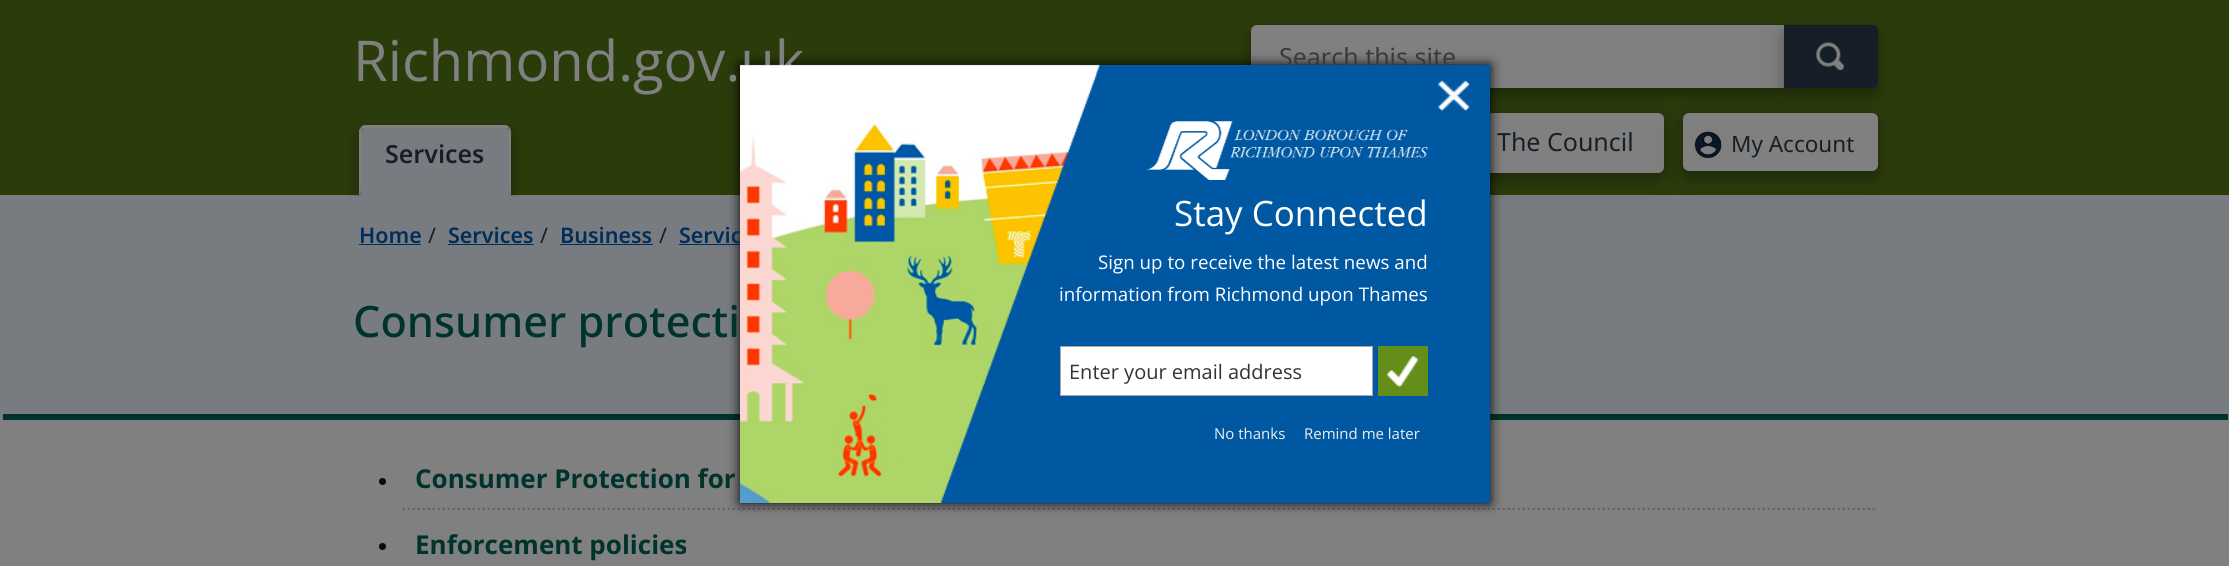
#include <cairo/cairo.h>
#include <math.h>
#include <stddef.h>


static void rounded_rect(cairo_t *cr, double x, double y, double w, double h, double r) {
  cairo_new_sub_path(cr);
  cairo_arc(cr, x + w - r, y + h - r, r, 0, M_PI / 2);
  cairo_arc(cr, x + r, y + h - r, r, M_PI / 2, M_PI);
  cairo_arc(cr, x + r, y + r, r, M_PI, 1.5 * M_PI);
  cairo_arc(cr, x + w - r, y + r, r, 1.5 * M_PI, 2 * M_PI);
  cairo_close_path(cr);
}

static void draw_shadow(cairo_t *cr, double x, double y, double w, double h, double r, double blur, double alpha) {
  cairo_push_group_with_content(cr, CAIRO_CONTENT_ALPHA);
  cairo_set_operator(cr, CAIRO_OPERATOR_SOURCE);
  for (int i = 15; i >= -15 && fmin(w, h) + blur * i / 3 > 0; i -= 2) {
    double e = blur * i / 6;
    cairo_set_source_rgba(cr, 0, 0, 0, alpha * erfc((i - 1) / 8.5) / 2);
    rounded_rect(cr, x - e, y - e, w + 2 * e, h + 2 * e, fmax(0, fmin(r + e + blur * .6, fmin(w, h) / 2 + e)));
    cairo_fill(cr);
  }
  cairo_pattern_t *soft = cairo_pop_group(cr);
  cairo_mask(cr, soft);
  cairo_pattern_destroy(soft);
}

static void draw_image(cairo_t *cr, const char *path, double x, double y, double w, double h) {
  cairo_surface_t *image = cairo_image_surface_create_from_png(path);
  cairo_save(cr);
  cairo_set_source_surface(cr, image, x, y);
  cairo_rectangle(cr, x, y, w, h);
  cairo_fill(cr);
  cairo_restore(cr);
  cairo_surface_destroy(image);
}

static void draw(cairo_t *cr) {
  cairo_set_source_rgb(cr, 128 / 255.0, 128 / 255.0, 128 / 255.0);
  cairo_paint(cr);
  cairo_set_source_rgb(cr, 43 / 255.0, 60 / 255.0, 11 / 255.0);
  cairo_rectangle(cr, 0, 0, 2229, 195);
  cairo_fill(cr);
  cairo_set_source_rgb(cr, 0, 0, 0);
  draw_shadow(cr, 1251, 33, 533, 62, 6, 12.5, 0.19);
  draw_shadow(cr, 1251, 30, 533, 63, 6, 5, 0.2);
  cairo_set_source_rgb(cr, 128 / 255.0, 128 / 255.0, 128 / 255.0);
  cairo_new_path(cr);
  cairo_move_to(cr, 1257, 26.5);
  cairo_line_to(cr, 1782.5, 26.5);
  cairo_line_to(cr, 1782.5, 86.5);
  cairo_line_to(cr, 1257, 86.5);
  cairo_curve_to(cr, 1254.5, 86.5, 1252.5, 84.5, 1252.5, 82);
  cairo_line_to(cr, 1252.5, 31);
  cairo_curve_to(cr, 1252.5, 28.5, 1254.5, 26.5, 1257, 26.5);
  cairo_close_path(cr);
  cairo_fill_preserve(cr);
  cairo_set_line_width(cr, 3);
  cairo_stroke(cr);
  cairo_set_source_rgb(cr, 0, 0, 0);
  draw_shadow(cr, 1784, 33, 94, 62, 6, 12.5, 0.19);
  draw_shadow(cr, 1784, 30, 94, 63, 6, 5, 0.2);
  cairo_set_source_rgb(cr, 22 / 255.0, 31 / 255.0, 40 / 255.0);
  cairo_new_path(cr);
  cairo_move_to(cr, 1784, 25);
  cairo_line_to(cr, 1872, 25);
  cairo_curve_to(cr, 1875.5, 25, 1878, 27.5, 1878, 31);
  cairo_line_to(cr, 1878, 82);
  cairo_curve_to(cr, 1878, 85.5, 1875.5, 88, 1872, 88);
  cairo_line_to(cr, 1784, 88);
  cairo_close_path(cr);
  cairo_fill(cr);
  draw_image(cr, "images/1.png", 1816, 42, 28, 28);
  cairo_new_path(cr);
  cairo_move_to(cr, 1785.5, 26.5);
  cairo_line_to(cr, 1872, 26.5);
  cairo_curve_to(cr, 1874.5, 26.5, 1876.5, 28.5, 1876.5, 31);
  cairo_line_to(cr, 1876.5, 82);
  cairo_curve_to(cr, 1876.5, 84.5, 1874.5, 86.5, 1872, 86.5);
  cairo_line_to(cr, 1785.5, 86.5);
  cairo_close_path(cr);
  cairo_stroke(cr);
  cairo_set_source_rgb(cr, 120 / 255.0, 124 / 255.0, 128 / 255.0);
  rounded_rect(cr, 0, 195, 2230, 225, 4);
  cairo_fill(cr);
  cairo_save(cr);
  cairo_rectangle(cr, 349, 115, 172, 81);
  cairo_clip(cr);
  cairo_set_source_rgb(cr, 0, 0, 0);
  draw_shadow(cr, 359, 133, 152, 72, 6, 12.5, 0.19);
  draw_shadow(cr, 359, 130, 152, 73, 6, 5, 0.2);
  cairo_restore(cr);
  cairo_new_path(cr);
  cairo_move_to(cr, 365, 128);
  cairo_line_to(cr, 505, 128);
  cairo_curve_to(cr, 507, 128, 509, 130, 509, 132);
  cairo_line_to(cr, 509, 191);
  cairo_line_to(cr, 361, 191);
  cairo_line_to(cr, 361, 132);
  cairo_curve_to(cr, 361, 130, 363, 128, 365, 128);
  cairo_close_path(cr);
  cairo_fill(cr);
  cairo_set_source_rgb(cr, 128 / 255.0, 128 / 255.0, 128 / 255.0);
  cairo_new_path(cr);
  cairo_move_to(cr, 365, 125);
  cairo_curve_to(cr, 363, 125, 362, 126, 361, 127);
  cairo_line_to(cr, 362, 129);
  cairo_line_to(cr, 365, 128);
  cairo_line_to(cr, 505, 128);
  cairo_line_to(cr, 508, 129);
  cairo_line_to(cr, 509, 127);
  cairo_curve_to(cr, 508, 126, 507, 125, 505, 125);
  cairo_close_path(cr);
  cairo_fill(cr);
  cairo_new_path(cr);
  cairo_move_to(cr, 509, 127);
  cairo_curve_to(cr, 510, 128, 511, 130, 511, 131);
  cairo_line_to(cr, 511, 197);
  cairo_line_to(cr, 509, 191);
  cairo_line_to(cr, 509, 131);
  cairo_line_to(cr, 508, 129);
  cairo_close_path(cr);
  cairo_fill(cr);
  cairo_save(cr);
  cairo_rectangle(cr, 349, 115, 172, 81);
  cairo_clip(cr);
  cairo_set_source_rgb(cr, 120 / 255.0, 124 / 255.0, 128 / 255.0);
  cairo_new_path(cr);
  cairo_move_to(cr, 359, 198);
  cairo_line_to(cr, 361, 191);
  cairo_line_to(cr, 509, 191);
  cairo_line_to(cr, 511, 197);
  cairo_line_to(cr, 511, 198);
  cairo_close_path(cr);
  cairo_fill(cr);
  cairo_restore(cr);
  cairo_new_path(cr);
  cairo_move_to(cr, 361, 127);
  cairo_curve_to(cr, 360, 128, 359, 130, 359, 131);
  cairo_line_to(cr, 359, 197);
  cairo_line_to(cr, 361, 191);
  cairo_line_to(cr, 361, 131);
  cairo_line_to(cr, 362, 129);
  cairo_close_path(cr);
  cairo_fill(cr);
  cairo_set_source_rgb(cr, 0, 0, 0);
  draw_shadow(cr, 1468, 120, 196, 60, 6, 12.5, 0.19);
  draw_shadow(cr, 1468, 118, 196, 60, 6, 5, 0.2);
  cairo_set_source_rgb(cr, 128 / 255.0, 128 / 255.0, 128 / 255.0);
  rounded_rect(cr, 1469.5, 114.5, 193, 57, 4.5);
  cairo_fill_preserve(cr);
  cairo_stroke(cr);
  cairo_set_source_rgb(cr, 0, 0, 0);
  draw_shadow(cr, 1683, 120, 195, 59, 6, 12.5, 0.19);
  draw_shadow(cr, 1683, 118, 195, 58, 6, 5, 0.2);
  cairo_set_source_rgb(cr, 128 / 255.0, 128 / 255.0, 128 / 255.0);
  rounded_rect(cr, 1684.5, 114.5, 192, 55, 4.5);
  cairo_fill_preserve(cr);
  cairo_stroke(cr);
  draw_image(cr, "images/2.png", 1692, 129, 31, 30);
  cairo_set_source_rgb(cr, 0, 51 / 255.0, 43 / 255.0);
  cairo_rectangle(cr, 3, 414, 2225, 6);
  cairo_fill(cr);
  cairo_set_source_rgb(cr, 0, 45 / 255.0, 90 / 255.0);
  cairo_rectangle(cr, 359, 244, 62, 1);
  cairo_fill(cr);
  cairo_rectangle(cr, 448, 244, 86, 1);
  cairo_fill(cr);
  cairo_rectangle(cr, 560, 244, 93, 1);
  cairo_fill(cr);
  cairo_rectangle(cr, 679, 244, 61, 1);
  cairo_fill(cr);
  cairo_set_source_rgb(cr, 9 / 255.0, 9 / 255.0, 9 / 255.0);
  cairo_arc(cr, 382.5, 481.5, 3.5, 0, 2 * M_PI);
  cairo_fill(cr);
  cairo_new_path(cr);
  cairo_move_to(cr, 402.5, 509);
  cairo_line_to(cr, 1877.5, 509);
  cairo_set_source_rgb(cr, 102 / 255.0, 102 / 255.0, 102 / 255.0);
  cairo_set_line_width(cr, 2.5);
  cairo_set_dash(cr, (double[]){2.5, 2.5}, 2, 0);
  cairo_stroke(cr);
  cairo_set_source_rgb(cr, 9 / 255.0, 9 / 255.0, 9 / 255.0);
  cairo_arc(cr, 382.5, 546.5, 3.5, 0, 2 * M_PI);
  cairo_fill(cr);
  cairo_set_source_rgb(cr, 128 / 255.0, 128 / 255.0, 128 / 255.0);
  cairo_rectangle(cr, 403, 510, 1472, 1);
  cairo_fill(cr);
  cairo_set_source_rgb(cr, 0, 0, 0);
  draw_shadow(cr, 740, 65, 750, 438, 0, 6, 1);
  cairo_select_font_face(cr, "Open Sans", CAIRO_FONT_SLANT_NORMAL, CAIRO_FONT_WEIGHT_NORMAL);
  cairo_set_font_size(cr, 56.25);
  cairo_set_source_rgb(cr, 128 / 255.0, 128 / 255.0, 128 / 255.0);
  cairo_move_to(cr, 353, 81);
  cairo_show_text(cr, "Richmond.gov.uk");
  cairo_select_font_face(cr, "Noto Sans", CAIRO_FONT_SLANT_NORMAL, CAIRO_FONT_WEIGHT_NORMAL);
  cairo_set_font_size(cr, 25);
  cairo_set_source_rgb(cr, 54 / 255.0, 59 / 255.0, 63 / 255.0);
  cairo_move_to(cr, 1279, 66);
  cairo_show_text(cr, "Search this site");
  cairo_select_font_face(cr, "Noto Sans SemiBold", CAIRO_FONT_SLANT_NORMAL, CAIRO_FONT_WEIGHT_NORMAL);
  cairo_set_source_rgb(cr, 22 / 255.0, 31 / 255.0, 40 / 255.0);
  cairo_move_to(cr, 385, 163);
  cairo_show_text(cr, "Services");
  cairo_select_font_face(cr, "Noto Sans", CAIRO_FONT_SLANT_NORMAL, CAIRO_FONT_WEIGHT_NORMAL);
  cairo_move_to(cr, 1497, 151);
  cairo_show_text(cr, "The Council");
  cairo_set_font_size(cr, 22.5);
  cairo_move_to(cr, 1731, 152);
  cairo_show_text(cr, "My Account");
  cairo_select_font_face(cr, "Noto Sans SemiBold", CAIRO_FONT_SLANT_NORMAL, CAIRO_FONT_WEIGHT_NORMAL);
  cairo_set_font_size(cr, 21.5);
  cairo_set_source_rgb(cr, 0, 45 / 255.0, 90 / 255.0);
  cairo_move_to(cr, 359, 243);
  cairo_show_text(cr, "Home");
  cairo_select_font_face(cr, "Noto Sans", CAIRO_FONT_SLANT_NORMAL, CAIRO_FONT_WEIGHT_NORMAL);
  cairo_set_source_rgb(cr, 22 / 255.0, 31 / 255.0, 40 / 255.0);
  cairo_move_to(cr, 428, 243);
  cairo_show_text(cr, "/");
  cairo_select_font_face(cr, "Noto Sans SemiBold", CAIRO_FONT_SLANT_NORMAL, CAIRO_FONT_WEIGHT_NORMAL);
  cairo_set_source_rgb(cr, 0, 45 / 255.0, 90 / 255.0);
  cairo_move_to(cr, 448, 243);
  cairo_show_text(cr, "Services");
  cairo_select_font_face(cr, "Noto Sans", CAIRO_FONT_SLANT_NORMAL, CAIRO_FONT_WEIGHT_NORMAL);
  cairo_set_source_rgb(cr, 22 / 255.0, 31 / 255.0, 40 / 255.0);
  cairo_move_to(cr, 540, 243);
  cairo_show_text(cr, "/");
  cairo_select_font_face(cr, "Noto Sans SemiBold", CAIRO_FONT_SLANT_NORMAL, CAIRO_FONT_WEIGHT_NORMAL);
  cairo_set_source_rgb(cr, 0, 45 / 255.0, 90 / 255.0);
  cairo_move_to(cr, 560, 243);
  cairo_show_text(cr, "Business");
  cairo_select_font_face(cr, "Noto Sans", CAIRO_FONT_SLANT_NORMAL, CAIRO_FONT_WEIGHT_NORMAL);
  cairo_set_source_rgb(cr, 22 / 255.0, 31 / 255.0, 40 / 255.0);
  cairo_move_to(cr, 659, 243);
  cairo_show_text(cr, "/");
  cairo_select_font_face(cr, "Noto Sans SemiBold", CAIRO_FONT_SLANT_NORMAL, CAIRO_FONT_WEIGHT_NORMAL);
  cairo_set_source_rgb(cr, 0, 45 / 255.0, 90 / 255.0);
  cairo_move_to(cr, 679, 243);
  cairo_show_text(cr, "Servic");
  cairo_select_font_face(cr, "Noto Sans Medium", CAIRO_FONT_SLANT_NORMAL, CAIRO_FONT_WEIGHT_NORMAL);
  cairo_set_font_size(cr, 43.25);
  cairo_set_source_rgb(cr, 0, 51 / 255.0, 43 / 255.0);
  cairo_move_to(cr, 353, 337);
  cairo_show_text(cr, "Consumer protecti");
  cairo_select_font_face(cr, "Open Sans", CAIRO_FONT_SLANT_NORMAL, CAIRO_FONT_WEIGHT_BOLD);
  cairo_set_font_size(cr, 26);
  cairo_move_to(cr, 415, 488);
  cairo_show_text(cr, "Consumer Protection for");
  cairo_move_to(cr, 415, 554);
  cairo_show_text(cr, "Enforcement policies");
  cairo_set_source_rgb(cr, 0, 88 / 255.0, 162 / 255.0);
  cairo_rectangle(cr, 740, 65, 750, 438);
  cairo_fill(cr);
  draw_image(cr, "images/3.png", 740, 64, 361, 439);
  draw_image(cr, "images/4.png", 1437, 80, 33, 32);
  draw_image(cr, "images/5.png", 1146, 121, 283, 59);
  cairo_select_font_face(cr, "Open Sans", CAIRO_FONT_SLANT_NORMAL, CAIRO_FONT_WEIGHT_NORMAL);
  cairo_set_font_size(cr, 35);
  cairo_set_source_rgb(cr, 1, 1, 1);
  cairo_move_to(cr, 1174, 226);
  cairo_show_text(cr, "Stay Connected");
  cairo_set_font_size(cr, 18.75);
  cairo_move_to(cr, 1098, 269);
  cairo_show_text(cr, "Sign up to receive the latest news and");
  cairo_move_to(cr, 1059, 301);
  cairo_show_text(cr, "information from Richmond upon Thames");
  cairo_rectangle(cr, 1060.5, 346.5, 312, 49);
  cairo_fill_preserve(cr);
  cairo_set_source_rgb(cr, 170 / 255.0, 170 / 255.0, 170 / 255.0);
  cairo_set_line_width(cr, 1);
  cairo_set_dash(cr, NULL, 0, 0);
  cairo_stroke(cr);
  cairo_set_font_size(cr, 20);
  cairo_set_source_rgb(cr, 51 / 255.0, 51 / 255.0, 51 / 255.0);
  cairo_move_to(cr, 1069, 379);
  cairo_show_text(cr, "Enter your email address");
  cairo_set_source_rgb(cr, 100 / 255.0, 142 / 255.0, 26 / 255.0);
  cairo_rectangle(cr, 1378, 346, 50, 50);
  cairo_fill(cr);
  draw_image(cr, "images/6.png", 1387, 356, 32, 31);
  cairo_set_font_size(cr, 15);
  cairo_set_source_rgb(cr, 238 / 255.0, 238 / 255.0, 238 / 255.0);
  cairo_move_to(cr, 1214, 439);
  cairo_show_text(cr, "No thanks");
  cairo_move_to(cr, 1304, 439);
  cairo_show_text(cr, "Remind me later");
}

int main(void) {
  cairo_surface_t *surface = cairo_image_surface_create(CAIRO_FORMAT_RGB24, 2229, 566);
  cairo_t *cr = cairo_create(surface);
  cairo_font_options_t *options = cairo_font_options_create();
  cairo_font_options_set_hint_metrics(options, CAIRO_HINT_METRICS_OFF);
  cairo_font_options_set_hint_style(options, CAIRO_HINT_STYLE_NONE);
  cairo_set_font_options(cr, options);
  cairo_set_miter_limit(cr, 4);
  draw(cr);
  cairo_surface_write_to_png(surface, "out.png");
  cairo_font_options_destroy(options);
  cairo_destroy(cr);
  cairo_surface_destroy(surface);
  return 0;
}
